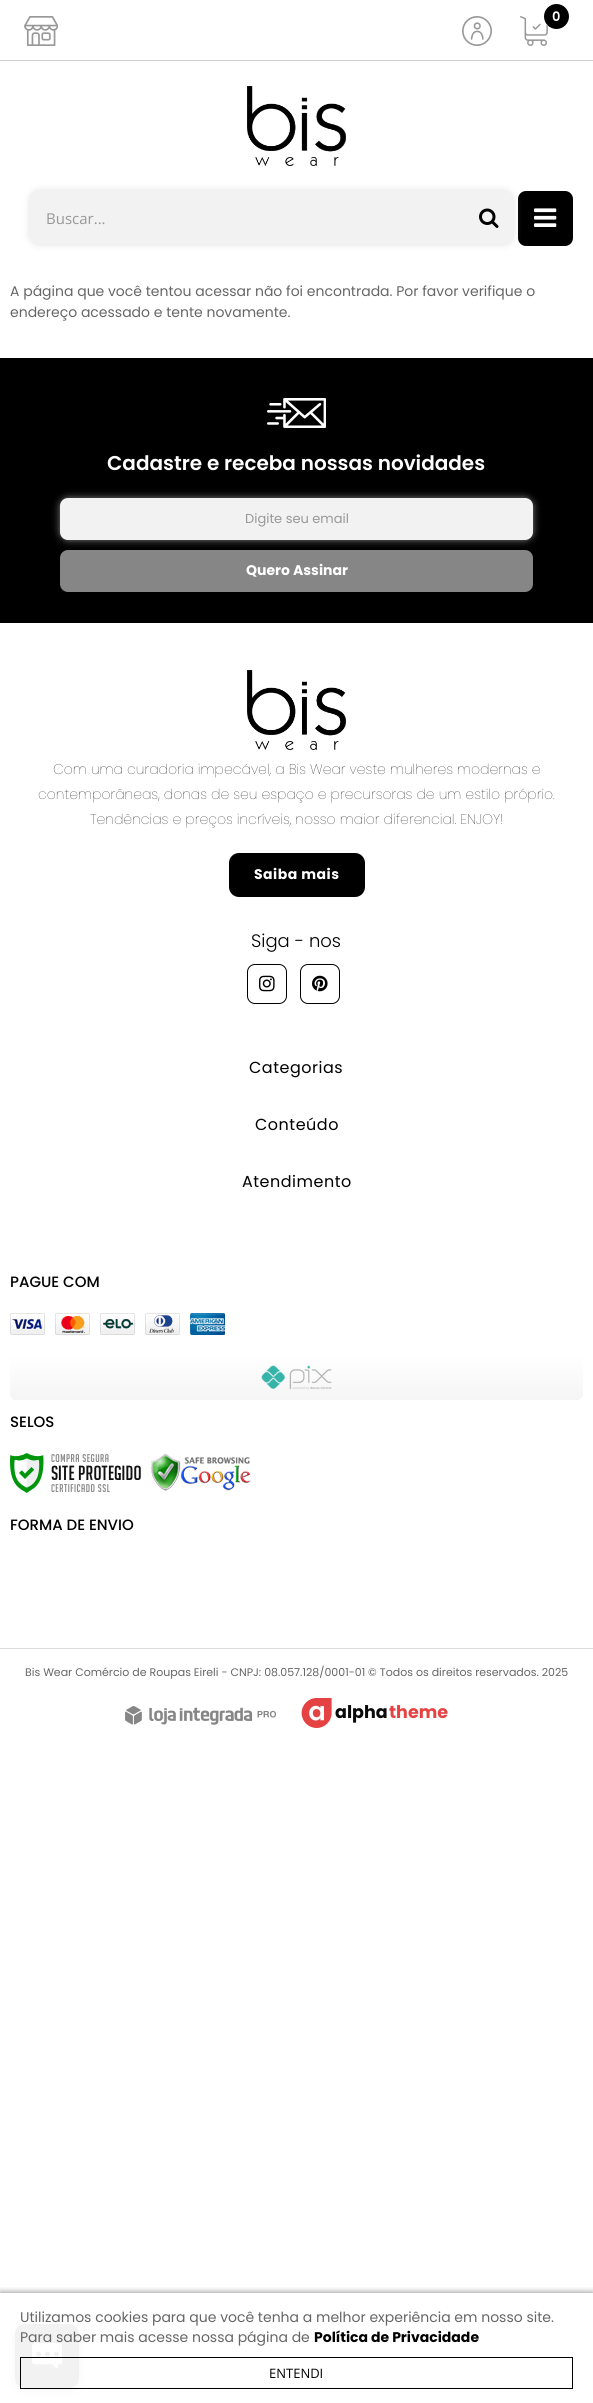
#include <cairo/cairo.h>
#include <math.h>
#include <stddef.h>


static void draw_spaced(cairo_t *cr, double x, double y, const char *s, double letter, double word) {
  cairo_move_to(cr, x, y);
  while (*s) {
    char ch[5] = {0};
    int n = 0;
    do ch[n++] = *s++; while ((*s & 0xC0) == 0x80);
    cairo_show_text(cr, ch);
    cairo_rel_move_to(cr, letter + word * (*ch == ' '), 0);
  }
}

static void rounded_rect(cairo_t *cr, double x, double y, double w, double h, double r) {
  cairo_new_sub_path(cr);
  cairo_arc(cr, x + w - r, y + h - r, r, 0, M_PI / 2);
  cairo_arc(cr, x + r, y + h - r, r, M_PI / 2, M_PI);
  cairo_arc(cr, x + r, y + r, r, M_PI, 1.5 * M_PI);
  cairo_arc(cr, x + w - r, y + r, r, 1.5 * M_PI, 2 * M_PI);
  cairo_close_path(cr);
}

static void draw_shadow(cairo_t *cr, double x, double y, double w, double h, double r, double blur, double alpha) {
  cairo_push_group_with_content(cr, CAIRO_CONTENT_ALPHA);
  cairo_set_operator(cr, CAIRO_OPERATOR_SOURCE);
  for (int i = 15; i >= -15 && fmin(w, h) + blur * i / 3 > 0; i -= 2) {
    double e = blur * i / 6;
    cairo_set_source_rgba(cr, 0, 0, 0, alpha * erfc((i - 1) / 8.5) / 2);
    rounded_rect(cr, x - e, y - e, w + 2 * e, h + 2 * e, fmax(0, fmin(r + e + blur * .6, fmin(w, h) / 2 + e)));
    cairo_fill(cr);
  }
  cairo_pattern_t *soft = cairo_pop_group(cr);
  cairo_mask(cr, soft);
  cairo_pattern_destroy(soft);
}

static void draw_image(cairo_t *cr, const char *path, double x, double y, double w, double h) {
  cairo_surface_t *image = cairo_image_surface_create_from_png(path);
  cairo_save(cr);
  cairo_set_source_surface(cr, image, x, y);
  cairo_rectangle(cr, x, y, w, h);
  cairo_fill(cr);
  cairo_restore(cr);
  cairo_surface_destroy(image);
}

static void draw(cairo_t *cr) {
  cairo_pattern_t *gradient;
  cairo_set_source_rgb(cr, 1, 1, 1);
  cairo_paint(cr);
  cairo_set_source_rgb(cr, 208 / 255.0, 208 / 255.0, 208 / 255.0);
  cairo_rectangle(cr, 0, 60, 593, 1);
  cairo_fill(cr);
  draw_image(cr, "images/1.png", 24, 16, 34, 30);
  draw_image(cr, "images/2.png", 462, 16, 30, 30);
  cairo_set_source_rgb(cr, 0, 0, 0);
  cairo_arc(cr, 556.5, 16.5, 12.5, 0, 2 * M_PI);
  cairo_fill(cr);
  draw_image(cr, "images/3.png", 520, 16, 28, 30);
  draw_image(cr, "images/4.png", 247, 86, 99, 80);
  rounded_rect(cr, 518, 191, 55, 55, 8);
  cairo_fill(cr);
  cairo_set_source_rgb(cr, 204 / 255.0, 204 / 255.0, 204 / 255.0);
  draw_shadow(cr, 32, 193, 479, 49, 6, 4.5, 1);
  cairo_set_source_rgb(cr, 242 / 255.0, 242 / 255.0, 242 / 255.0);
  rounded_rect(cr, 30, 191, 483, 53, 8);
  cairo_fill(cr);
  draw_image(cr, "images/5.png", 479, 208, 20, 20);
  draw_image(cr, "images/6.png", 534, 208, 23, 19);
  cairo_set_source_rgb(cr, 0, 0, 0);
  cairo_rectangle(cr, 0, 358, 593, 265);
  cairo_fill(cr);
  draw_image(cr, "images/7.png", 267, 398, 59, 30);
  cairo_set_source_rgb(cr, 204 / 255.0, 204 / 255.0, 204 / 255.0);
  draw_shadow(cr, 62, 500, 469, 38, 6, 4.5, 1);
  cairo_set_source_rgb(cr, 242 / 255.0, 242 / 255.0, 242 / 255.0);
  rounded_rect(cr, 60, 498, 473, 42, 8);
  cairo_fill(cr);
  cairo_set_source_rgb(cr, 134 / 255.0, 134 / 255.0, 134 / 255.0);
  rounded_rect(cr, 61, 551, 471, 40, 7);
  cairo_fill_preserve(cr);
  cairo_stroke(cr);
  draw_image(cr, "images/8.png", 247, 670, 99, 80);
  cairo_set_source_rgb(cr, 0, 0, 0);
  rounded_rect(cr, 230, 854, 134, 42, 9);
  cairo_fill_preserve(cr);
  cairo_stroke(cr);
  rounded_rect(cr, 247.5, 964.5, 39, 39, 7.5);
  cairo_set_line_width(cr, 1);
  cairo_stroke(cr);
  draw_image(cr, "images/9.png", 259, 975, 16, 17);
  rounded_rect(cr, 300.5, 964.5, 39, 39, 7.5);
  cairo_stroke(cr);
  draw_image(cr, "images/10.png", 312, 975, 16, 17);
  draw_image(cr, "images/11.png", 10, 1313, 35, 22);
  draw_image(cr, "images/12.png", 55, 1313, 35, 22);
  draw_image(cr, "images/13.png", 100, 1313, 35, 22);
  draw_image(cr, "images/14.png", 145, 1313, 35, 22);
  draw_image(cr, "images/15.png", 190, 1313, 35, 22);
  gradient = cairo_pattern_create_linear(297, 1355, 297, 1400);
  cairo_pattern_add_color_stop_rgba(gradient, 0, 1, 1, 1, 1);
  cairo_pattern_add_color_stop_rgba(gradient, 1, 245 / 255.0, 245 / 255.0, 245 / 255.0, 1);
  cairo_set_source(cr, gradient);
  cairo_pattern_destroy(gradient);
  rounded_rect(cr, 10, 1355, 573, 45, 6);
  cairo_fill(cr);
  draw_image(cr, "images/16.png", 261, 1365, 71, 25);
  draw_image(cr, "images/17.png", 10, 1453, 131, 40);
  draw_image(cr, "images/18.png", 151, 1454, 100, 37);
  cairo_set_source_rgb(cr, 221 / 255.0, 221 / 255.0, 221 / 255.0);
  cairo_rectangle(cr, 0, 1648, 593, 1);
  cairo_fill(cr);
  draw_image(cr, "images/19.png", 125, 1706, 151, 19);
  draw_image(cr, "images/20.png", 301, 1698, 31, 30);
  cairo_set_source_rgb(cr, 242 / 255.0, 242 / 255.0, 242 / 255.0);
  draw_shadow(cr, 17, 2329, 60, 60, 8, 4.5, 1);
  cairo_set_source_rgb(cr, 242 / 255.0, 242 / 255.0, 242 / 255.0);
  rounded_rect(cr, 15, 2324, 64, 64, 10);
  cairo_fill(cr);
  draw_image(cr, "images/21.png", 32, 2343, 30, 26);
  cairo_save(cr);
  cairo_rectangle(cr, 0, 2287, 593, 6);
  cairo_clip(cr);
  cairo_set_source_rgb(cr, 0, 0, 0);
  draw_shadow(cr, 0, 2293, 593, 110, 0, 3.5, 0.5);
  cairo_restore(cr);
  cairo_rectangle(cr, 20.5, 2357.5, 552, 31);
  cairo_set_source_rgb(cr, 0, 0, 0);
  cairo_stroke(cr);
  cairo_select_font_face(cr, "Poppins SemiBold", CAIRO_FONT_SLANT_NORMAL, CAIRO_FONT_WEIGHT_NORMAL);
  cairo_set_font_size(cr, 13);
  cairo_set_source_rgb(cr, 1, 1, 1);
  cairo_move_to(cr, 552, 21);
  cairo_show_text(cr, "0");
  cairo_select_font_face(cr, "Open Sans", CAIRO_FONT_SLANT_NORMAL, CAIRO_FONT_WEIGHT_NORMAL);
  cairo_set_font_size(cr, 15);
  cairo_set_source_rgb(cr, 152 / 255.0, 152 / 255.0, 152 / 255.0);
  cairo_move_to(cr, 46, 224);
  cairo_show_text(cr, "Buscar...");
  cairo_select_font_face(cr, "Poppins", CAIRO_FONT_SLANT_NORMAL, CAIRO_FONT_WEIGHT_NORMAL);
  cairo_set_font_size(cr, 14);
  cairo_set_source_rgb(cr, 102 / 255.0, 102 / 255.0, 102 / 255.0);
  cairo_move_to(cr, 10, 296);
  cairo_show_text(cr, "A página que você tentou acessar não foi encontrada. Por favor verifique o");
  cairo_move_to(cr, 10, 317);
  cairo_show_text(cr, "endereço acessado e tente novamente.");
  cairo_select_font_face(cr, "Poppins SemiBold", CAIRO_FONT_SLANT_NORMAL, CAIRO_FONT_WEIGHT_NORMAL);
  cairo_set_font_size(cr, 20);
  cairo_set_source_rgb(cr, 1, 1, 1);
  cairo_move_to(cr, 107, 470);
  cairo_show_text(cr, "Cadastre e receba nossas novidades");
  cairo_select_font_face(cr, "Poppins", CAIRO_FONT_SLANT_NORMAL, CAIRO_FONT_WEIGHT_NORMAL);
  cairo_set_font_size(cr, 13);
  cairo_set_source_rgb(cr, 152 / 255.0, 152 / 255.0, 152 / 255.0);
  cairo_move_to(cr, 245, 523);
  cairo_show_text(cr, "Digite seu email");
  cairo_select_font_face(cr, "Poppins", CAIRO_FONT_SLANT_NORMAL, CAIRO_FONT_WEIGHT_BOLD);
  cairo_set_font_size(cr, 14);
  cairo_set_source_rgb(cr, 1, 1, 1);
  cairo_move_to(cr, 246, 575);
  cairo_show_text(cr, "Quero Assinar");
  cairo_select_font_face(cr, "Poppins ExtraLight", CAIRO_FONT_SLANT_NORMAL, CAIRO_FONT_WEIGHT_NORMAL);
  cairo_set_source_rgb(cr, 0, 0, 0);
  cairo_move_to(cr, 53, 774);
  cairo_show_text(cr, "Com uma curadoria impecável, a Bis Wear veste mulheres modernas e");
  cairo_move_to(cr, 38, 799);
  cairo_show_text(cr, "contemporâneas, donas de seu espaço e precursoras de um estilo próprio.");
  cairo_move_to(cr, 90, 824);
  cairo_show_text(cr, "Tendências e preços incríveis, nosso maior diferencial. ENJOY!");
  cairo_select_font_face(cr, "Poppins", CAIRO_FONT_SLANT_NORMAL, CAIRO_FONT_WEIGHT_BOLD);
  cairo_set_source_rgb(cr, 1, 1, 1);
  draw_spaced(cr, 254, 879, "Saiba mais", 0.5, 0);
  cairo_select_font_face(cr, "Poppins Light", CAIRO_FONT_SLANT_NORMAL, CAIRO_FONT_WEIGHT_NORMAL);
  cairo_set_font_size(cr, 18);
  cairo_set_source_rgb(cr, 0, 0, 0);
  cairo_move_to(cr, 251, 947);
  cairo_show_text(cr, "Siga - nos");
  cairo_select_font_face(cr, "Poppins", CAIRO_FONT_SLANT_NORMAL, CAIRO_FONT_WEIGHT_NORMAL);
  cairo_set_font_size(cr, 16);
  draw_spaced(cr, 249, 1073, "Categorias", 0.5, 0);
  draw_spaced(cr, 255, 1130, "Conteúdo", 0.5, 0);
  draw_spaced(cr, 242, 1187, "Atendimento", 0.5, 0);
  cairo_select_font_face(cr, "Poppins Medium", CAIRO_FONT_SLANT_NORMAL, CAIRO_FONT_WEIGHT_NORMAL);
  cairo_set_font_size(cr, 15);
  cairo_move_to(cr, 10, 1287);
  cairo_show_text(cr, "PAGUE COM");
  cairo_move_to(cr, 10, 1427);
  cairo_show_text(cr, "SELOS");
  cairo_move_to(cr, 10, 1530);
  cairo_show_text(cr, "FORMA DE ENVIO");
  cairo_select_font_face(cr, "Poppins", CAIRO_FONT_SLANT_NORMAL, CAIRO_FONT_WEIGHT_NORMAL);
  cairo_set_font_size(cr, 11);
  cairo_set_source_rgb(cr, 102 / 255.0, 102 / 255.0, 102 / 255.0);
  cairo_move_to(cr, 25, 1676);
  cairo_show_text(cr, "Bis Wear Comércio de Roupas Eireli - CNPJ: 08.057.128/0001-01 © Todos os direitos reservados. 2025");
  cairo_select_font_face(cr, "Poppins", CAIRO_FONT_SLANT_NORMAL, CAIRO_FONT_WEIGHT_BOLD);
  cairo_set_font_size(cr, 17.5);
  cairo_set_source_rgb(cr, 10 / 255.0, 10 / 255.0, 10 / 255.0);
  cairo_move_to(cr, 335, 1718);
  cairo_show_text(cr, "alpha");
  cairo_set_source_rgb(cr, 229 / 255.0, 67 / 255.0, 67 / 255.0);
  cairo_move_to(cr, 389, 1718);
  cairo_show_text(cr, "theme");
  cairo_select_font_face(cr, "Poppins", CAIRO_FONT_SLANT_NORMAL, CAIRO_FONT_WEIGHT_NORMAL);
  cairo_set_font_size(cr, 14);
  cairo_set_source_rgb(cr, 102 / 255.0, 102 / 255.0, 102 / 255.0);
  cairo_move_to(cr, 20, 2322);
  cairo_show_text(cr, "Utilizamos cookies para que você tenha a melhor experiência em nosso site.");
  cairo_move_to(cr, 20, 2342);
  cairo_show_text(cr, "Para saber mais acesse nossa página de");
  cairo_select_font_face(cr, "Poppins", CAIRO_FONT_SLANT_NORMAL, CAIRO_FONT_WEIGHT_BOLD);
  cairo_set_source_rgb(cr, 0, 0, 0);
  cairo_move_to(cr, 314, 2342);
  cairo_show_text(cr, "Política de Privacidade");
  cairo_select_font_face(cr, "Open Sans", CAIRO_FONT_SLANT_NORMAL, CAIRO_FONT_WEIGHT_NORMAL);
  cairo_set_font_size(cr, 13);
  cairo_move_to(cr, 269, 2378);
  cairo_show_text(cr, "ENTENDI");
}

int main(void) {
  cairo_surface_t *surface = cairo_image_surface_create(CAIRO_FORMAT_RGB24, 593, 2403);
  cairo_t *cr = cairo_create(surface);
  cairo_font_options_t *options = cairo_font_options_create();
  cairo_font_options_set_hint_metrics(options, CAIRO_HINT_METRICS_OFF);
  cairo_font_options_set_hint_style(options, CAIRO_HINT_STYLE_NONE);
  cairo_set_font_options(cr, options);
  cairo_set_miter_limit(cr, 4);
  draw(cr);
  cairo_surface_write_to_png(surface, "out.png");
  cairo_font_options_destroy(options);
  cairo_destroy(cr);
  cairo_surface_destroy(surface);
  return 0;
}
